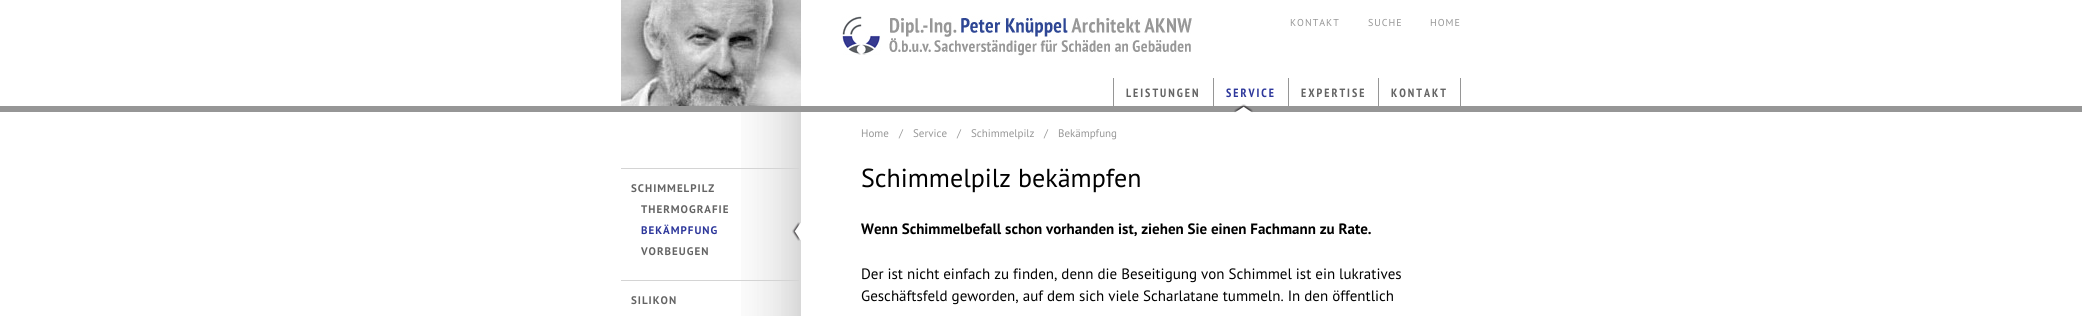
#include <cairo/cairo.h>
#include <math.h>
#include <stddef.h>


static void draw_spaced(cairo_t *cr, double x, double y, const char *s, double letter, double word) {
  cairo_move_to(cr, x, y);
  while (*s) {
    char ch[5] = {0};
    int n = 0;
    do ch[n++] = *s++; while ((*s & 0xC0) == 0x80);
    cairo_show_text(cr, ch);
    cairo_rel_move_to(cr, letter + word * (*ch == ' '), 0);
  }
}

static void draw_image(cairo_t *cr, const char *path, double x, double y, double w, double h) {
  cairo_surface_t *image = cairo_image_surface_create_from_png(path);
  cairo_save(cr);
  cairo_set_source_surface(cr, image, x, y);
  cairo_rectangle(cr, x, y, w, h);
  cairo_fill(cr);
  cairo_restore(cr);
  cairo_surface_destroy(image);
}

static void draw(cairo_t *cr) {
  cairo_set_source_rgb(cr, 1, 1, 1);
  cairo_paint(cr);
  cairo_set_source_rgb(cr, 150 / 255.0, 150 / 255.0, 150 / 255.0);
  cairo_rectangle(cr, 0, 106, 2082, 6);
  cairo_fill(cr);
  draw_image(cr, "images/1.png", 621, 0, 180, 106);
  draw_image(cr, "images/2.png", 841, 16, 351, 40);
  cairo_rectangle(cr, 1460, 78, 1, 30);
  cairo_fill(cr);
  cairo_rectangle(cr, 1113, 78, 1, 28);
  cairo_fill(cr);
  cairo_rectangle(cr, 1213, 78, 1, 28);
  cairo_fill(cr);
  draw_image(cr, "images/3.png", 1234, 104, 19, 9);
  cairo_rectangle(cr, 1288, 78, 1, 28);
  cairo_fill(cr);
  cairo_rectangle(cr, 1378, 78, 1, 28);
  cairo_fill(cr);
  draw_image(cr, "images/4.png", 741, 112, 60, 204);
  cairo_set_source_rgb(cr, 212 / 255.0, 212 / 255.0, 212 / 255.0);
  cairo_rectangle(cr, 621, 168, 178, 1);
  cairo_fill(cr);
  draw_image(cr, "images/5.png", 792, 222, 9, 19);
  cairo_rectangle(cr, 621, 280, 178, 1);
  cairo_fill(cr);
  cairo_select_font_face(cr, "PT Sans", CAIRO_FONT_SLANT_NORMAL, CAIRO_FONT_WEIGHT_NORMAL);
  cairo_set_font_size(cr, 10);
  cairo_set_source_rgb(cr, 150 / 255.0, 150 / 255.0, 150 / 255.0);
  draw_spaced(cr, 1290, 26, "KONTAKT", 1, 0);
  draw_spaced(cr, 1368, 26, "SUCHE", 1, 0);
  draw_spaced(cr, 1430, 26, "HOME", 1, 0);
  cairo_select_font_face(cr, "PT Sans Narrow", CAIRO_FONT_SLANT_NORMAL, CAIRO_FONT_WEIGHT_BOLD);
  cairo_set_font_size(cr, 12);
  cairo_set_source_rgb(cr, 100 / 255.0, 100 / 255.0, 100 / 255.0);
  draw_spaced(cr, 1126, 97, "LEISTUNGEN", 2, 0);
  cairo_set_source_rgb(cr, 45 / 255.0, 55 / 255.0, 155 / 255.0);
  draw_spaced(cr, 1226, 97, "SERVICE", 2, 0);
  cairo_set_source_rgb(cr, 100 / 255.0, 100 / 255.0, 100 / 255.0);
  draw_spaced(cr, 1301, 97, "EXPERTISE", 2, 0);
  draw_spaced(cr, 1391, 97, "KONTAKT", 2, 0);
  cairo_select_font_face(cr, "PT Sans", CAIRO_FONT_SLANT_NORMAL, CAIRO_FONT_WEIGHT_BOLD);
  cairo_set_font_size(cr, 11);
  draw_spaced(cr, 631, 192, "SCHIMMELPILZ", 1, 0);
  draw_spaced(cr, 641, 213, "THERMOGRAFIE", 1, 0);
  cairo_set_source_rgb(cr, 45 / 255.0, 55 / 255.0, 155 / 255.0);
  draw_spaced(cr, 641, 234, "BEKÄMPFUNG", 1, 0);
  cairo_set_source_rgb(cr, 100 / 255.0, 100 / 255.0, 100 / 255.0);
  draw_spaced(cr, 641, 255, "VORBEUGEN", 1, 0);
  draw_spaced(cr, 631, 304, "SILIKON", 1, 0);
  cairo_select_font_face(cr, "PT Sans", CAIRO_FONT_SLANT_NORMAL, CAIRO_FONT_WEIGHT_NORMAL);
  cairo_set_source_rgb(cr, 150 / 255.0, 150 / 255.0, 150 / 255.0);
  cairo_move_to(cr, 861, 137);
  cairo_show_text(cr, "Home");
  cairo_move_to(cr, 899, 137);
  cairo_show_text(cr, "/");
  cairo_move_to(cr, 913, 137);
  cairo_show_text(cr, "Service");
  cairo_move_to(cr, 957, 137);
  cairo_show_text(cr, "/");
  cairo_move_to(cr, 971, 137);
  cairo_show_text(cr, "Schimmelpilz");
  cairo_move_to(cr, 1044, 137);
  cairo_show_text(cr, "/");
  cairo_move_to(cr, 1058, 137);
  cairo_show_text(cr, "Bekämpfung");
  cairo_set_font_size(cr, 26);
  cairo_set_source_rgb(cr, 0, 0, 0);
  cairo_move_to(cr, 861, 187);
  cairo_show_text(cr, "Schimmelpilz bekämpfen");
  cairo_select_font_face(cr, "PT Sans", CAIRO_FONT_SLANT_NORMAL, CAIRO_FONT_WEIGHT_BOLD);
  cairo_set_font_size(cr, 15);
  cairo_move_to(cr, 861, 234);
  cairo_show_text(cr, "Wenn Schimmelbefall schon vorhanden ist, ziehen Sie einen Fachmann zu Rate.");
  cairo_select_font_face(cr, "PT Sans", CAIRO_FONT_SLANT_NORMAL, CAIRO_FONT_WEIGHT_NORMAL);
  cairo_move_to(cr, 861, 279);
  cairo_show_text(cr, "Der ist nicht einfach zu finden, denn die Beseitigung von Schimmel ist ein lukratives");
  cairo_move_to(cr, 861, 301);
  cairo_show_text(cr, "Geschäftsfeld geworden, auf dem sich viele Scharlatane tummeln. In den öffentlich");
}

int main(void) {
  cairo_surface_t *surface = cairo_image_surface_create(CAIRO_FORMAT_RGB24, 2082, 316);
  cairo_t *cr = cairo_create(surface);
  cairo_font_options_t *options = cairo_font_options_create();
  cairo_font_options_set_hint_metrics(options, CAIRO_HINT_METRICS_OFF);
  cairo_font_options_set_hint_style(options, CAIRO_HINT_STYLE_NONE);
  cairo_set_font_options(cr, options);
  cairo_set_miter_limit(cr, 4);
  draw(cr);
  cairo_surface_write_to_png(surface, "out.png");
  cairo_font_options_destroy(options);
  cairo_destroy(cr);
  cairo_surface_destroy(surface);
  return 0;
}
